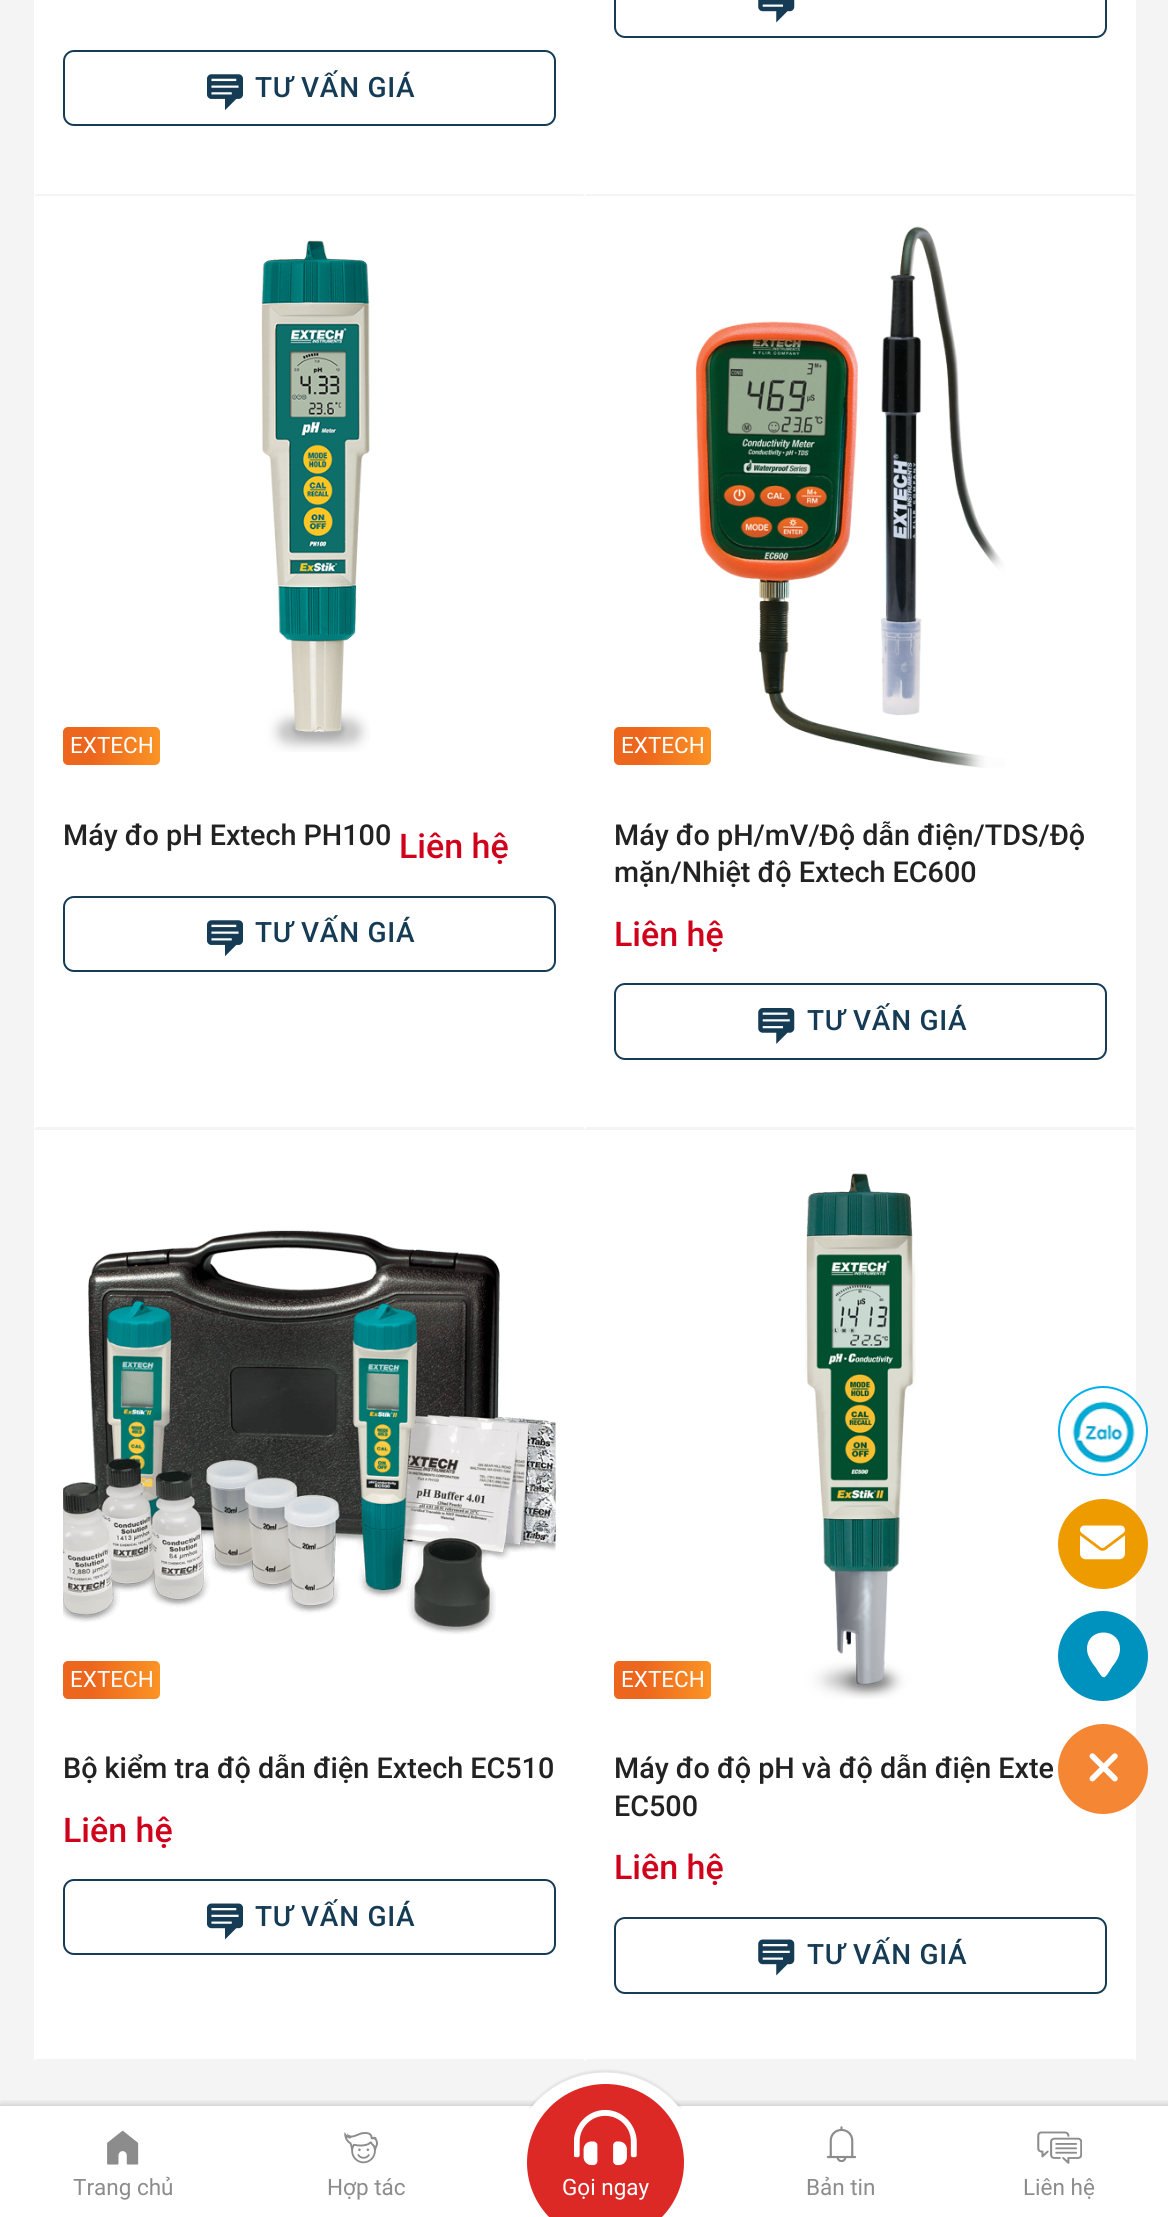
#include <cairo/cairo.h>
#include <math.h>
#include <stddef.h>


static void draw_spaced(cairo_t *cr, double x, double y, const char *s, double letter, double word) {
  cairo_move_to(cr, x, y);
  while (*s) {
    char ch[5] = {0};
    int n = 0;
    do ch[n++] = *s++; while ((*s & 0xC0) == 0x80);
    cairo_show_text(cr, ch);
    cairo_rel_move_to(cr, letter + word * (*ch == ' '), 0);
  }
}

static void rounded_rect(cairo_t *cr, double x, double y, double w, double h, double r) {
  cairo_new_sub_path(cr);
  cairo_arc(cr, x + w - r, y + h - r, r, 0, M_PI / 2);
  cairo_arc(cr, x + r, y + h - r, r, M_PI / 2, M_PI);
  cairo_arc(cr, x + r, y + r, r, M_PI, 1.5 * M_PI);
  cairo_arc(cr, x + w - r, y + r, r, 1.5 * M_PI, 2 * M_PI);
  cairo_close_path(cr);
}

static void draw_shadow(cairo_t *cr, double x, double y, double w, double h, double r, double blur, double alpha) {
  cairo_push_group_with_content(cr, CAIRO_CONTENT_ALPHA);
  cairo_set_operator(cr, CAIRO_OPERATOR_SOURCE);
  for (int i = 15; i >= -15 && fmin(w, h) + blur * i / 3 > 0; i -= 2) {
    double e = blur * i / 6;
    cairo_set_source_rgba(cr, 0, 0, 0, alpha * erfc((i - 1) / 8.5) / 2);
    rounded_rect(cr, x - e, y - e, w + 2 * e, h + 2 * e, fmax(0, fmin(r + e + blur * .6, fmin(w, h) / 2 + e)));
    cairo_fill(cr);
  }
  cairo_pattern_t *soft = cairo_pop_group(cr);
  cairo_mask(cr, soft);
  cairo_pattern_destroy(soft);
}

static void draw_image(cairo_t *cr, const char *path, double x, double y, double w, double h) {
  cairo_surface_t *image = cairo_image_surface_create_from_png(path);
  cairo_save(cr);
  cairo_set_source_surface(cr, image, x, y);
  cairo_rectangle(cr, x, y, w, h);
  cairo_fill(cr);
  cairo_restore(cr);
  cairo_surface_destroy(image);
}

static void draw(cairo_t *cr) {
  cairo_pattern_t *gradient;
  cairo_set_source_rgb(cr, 244 / 255.0, 244 / 255.0, 244 / 255.0);
  cairo_paint(cr);
  cairo_set_source_rgb(cr, 1, 1, 1);
  cairo_rectangle(cr, 34, 0, 1102, 196);
  cairo_fill(cr);
  cairo_set_source_rgb(cr, 244 / 255.0, 244 / 255.0, 244 / 255.0);
  cairo_new_path(cr);
  cairo_move_to(cr, 585, 196);
  cairo_line_to(cr, 34, 196);
  cairo_line_to(cr, 36, 194);
  cairo_line_to(cr, 583, 194);
  cairo_close_path(cr);
  cairo_fill(cr);
  rounded_rect(cr, 64, 51, 491, 74, 10);
  cairo_set_source_rgb(cr, 22 / 255.0, 59 / 255.0, 85 / 255.0);
  cairo_stroke(cr);
  draw_image(cr, "images/1.png", 207, 74, 36, 37);
  cairo_set_source_rgb(cr, 244 / 255.0, 244 / 255.0, 244 / 255.0);
  cairo_new_path(cr);
  cairo_move_to(cr, 1136, 196);
  cairo_line_to(cr, 585, 196);
  cairo_line_to(cr, 587, 194);
  cairo_line_to(cr, 1134, 194);
  cairo_close_path(cr);
  cairo_fill(cr);
  rounded_rect(cr, 615, -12, 491, 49, 10);
  cairo_set_source_rgb(cr, 22 / 255.0, 59 / 255.0, 85 / 255.0);
  cairo_stroke(cr);
  draw_image(cr, "images/2.png", 758, 0, 37, 23);
  cairo_set_source_rgb(cr, 1, 1, 1);
  cairo_rectangle(cr, 34, 196, 1102, 934);
  cairo_fill(cr);
  cairo_set_source_rgb(cr, 244 / 255.0, 244 / 255.0, 244 / 255.0);
  cairo_new_path(cr);
  cairo_move_to(cr, 585, 1130);
  cairo_line_to(cr, 34, 1130);
  cairo_line_to(cr, 36, 1127);
  cairo_line_to(cr, 583, 1127);
  cairo_close_path(cr);
  cairo_fill(cr);
  gradient = cairo_pattern_create_linear(63, 746, 160, 746);
  cairo_pattern_add_color_stop_rgba(gradient, 0.3, 237 / 255.0, 102 / 255.0, 29 / 255.0, 1);
  cairo_pattern_add_color_stop_rgba(gradient, 1, 251 / 255.0, 148 / 255.0, 37 / 255.0, 1);
  cairo_set_source(cr, gradient);
  cairo_pattern_destroy(gradient);
  rounded_rect(cr, 63, 727, 97, 38, 5);
  cairo_fill(cr);
  draw_image(cr, "images/3.png", 261, 240, 109, 512);
  rounded_rect(cr, 64, 897, 491, 74, 10);
  cairo_set_source_rgb(cr, 22 / 255.0, 59 / 255.0, 85 / 255.0);
  cairo_stroke(cr);
  draw_image(cr, "images/1.png", 207, 920, 36, 37);
  cairo_set_source_rgb(cr, 244 / 255.0, 244 / 255.0, 244 / 255.0);
  cairo_new_path(cr);
  cairo_move_to(cr, 1136, 1130);
  cairo_line_to(cr, 585, 1130);
  cairo_line_to(cr, 587, 1127);
  cairo_line_to(cr, 1134, 1127);
  cairo_close_path(cr);
  cairo_fill(cr);
  draw_image(cr, "images/4.png", 695, 226, 310, 542);
  gradient = cairo_pattern_create_linear(614, 746, 711, 746);
  cairo_pattern_add_color_stop_rgba(gradient, 0.3, 237 / 255.0, 102 / 255.0, 29 / 255.0, 1);
  cairo_pattern_add_color_stop_rgba(gradient, 1, 251 / 255.0, 148 / 255.0, 37 / 255.0, 1);
  cairo_set_source(cr, gradient);
  cairo_pattern_destroy(gradient);
  rounded_rect(cr, 614, 727, 97, 38, 5);
  cairo_fill(cr);
  rounded_rect(cr, 615, 984, 491, 75, 10);
  cairo_set_source_rgb(cr, 22 / 255.0, 59 / 255.0, 85 / 255.0);
  cairo_stroke(cr);
  draw_image(cr, "images/5.png", 758, 1008, 37, 36);
  cairo_set_source_rgb(cr, 1, 1, 1);
  cairo_rectangle(cr, 34, 1130, 1102, 931);
  cairo_fill(cr);
  cairo_set_source_rgb(cr, 244 / 255.0, 244 / 255.0, 244 / 255.0);
  cairo_new_path(cr);
  cairo_move_to(cr, 585, 2061);
  cairo_line_to(cr, 34, 2061);
  cairo_line_to(cr, 36, 2059);
  cairo_line_to(cr, 583, 2059);
  cairo_close_path(cr);
  cairo_fill(cr);
  draw_image(cr, "images/6.png", 63, 1230, 493, 405);
  gradient = cairo_pattern_create_linear(63, 1680, 160, 1680);
  cairo_pattern_add_color_stop_rgba(gradient, 0.3, 237 / 255.0, 102 / 255.0, 29 / 255.0, 1);
  cairo_pattern_add_color_stop_rgba(gradient, 1, 251 / 255.0, 148 / 255.0, 37 / 255.0, 1);
  cairo_set_source(cr, gradient);
  cairo_pattern_destroy(gradient);
  rounded_rect(cr, 63, 1661, 97, 38, 5);
  cairo_fill(cr);
  rounded_rect(cr, 64, 1880, 491, 74, 10);
  cairo_set_source_rgb(cr, 22 / 255.0, 59 / 255.0, 85 / 255.0);
  cairo_stroke(cr);
  draw_image(cr, "images/7.png", 207, 1903, 36, 37);
  cairo_set_source_rgb(cr, 244 / 255.0, 244 / 255.0, 244 / 255.0);
  cairo_new_path(cr);
  cairo_move_to(cr, 1136, 2061);
  cairo_line_to(cr, 585, 2061);
  cairo_line_to(cr, 587, 2059);
  cairo_line_to(cr, 1134, 2059);
  cairo_close_path(cr);
  cairo_fill(cr);
  gradient = cairo_pattern_create_linear(614, 1680, 711, 1680);
  cairo_pattern_add_color_stop_rgba(gradient, 0.3, 237 / 255.0, 102 / 255.0, 29 / 255.0, 1);
  cairo_pattern_add_color_stop_rgba(gradient, 1, 251 / 255.0, 148 / 255.0, 37 / 255.0, 1);
  cairo_set_source(cr, gradient);
  cairo_pattern_destroy(gradient);
  rounded_rect(cr, 614, 1661, 97, 38, 5);
  cairo_fill(cr);
  draw_image(cr, "images/8.png", 805, 1173, 111, 526);
  rounded_rect(cr, 615, 1918, 491, 75, 10);
  cairo_set_source_rgb(cr, 22 / 255.0, 59 / 255.0, 85 / 255.0);
  cairo_stroke(cr);
  draw_image(cr, "images/9.png", 758, 1939, 37, 37);
  cairo_set_source_rgb(cr, 1, 1, 1);
  cairo_rectangle(cr, 0, 2106, 1168, 111);
  cairo_fill(cr);
  cairo_save(cr);
  cairo_rectangle(cr, 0, 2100, 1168, 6);
  cairo_clip(cr);
  cairo_set_source_rgb(cr, 0, 0, 0);
  draw_shadow(cr, 0, 2106, 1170, 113, 0, 4.5, 0.25);
  cairo_restore(cr);
  draw_image(cr, "images/10.png", 107, 2130, 32, 35);
  draw_image(cr, "images/11.png", 344, 2132, 34, 32);
  draw_image(cr, "images/12.png", 529, 2069, 153, 40);
  cairo_set_source_rgb(cr, 220 / 255.0, 41 / 255.0, 38 / 255.0);
  cairo_arc(cr, 605.5, 2162.5, 78.5, 0, 2 * M_PI);
  cairo_fill(cr);
  draw_image(cr, "images/13.png", 574, 2109, 63, 57);
  draw_image(cr, "images/14.png", 826, 2126, 31, 36);
  draw_image(cr, "images/15.png", 1037, 2131, 45, 33);
  cairo_set_source_rgb(cr, 1, 1, 1);
  cairo_arc(cr, 1103, 1431, 45, 0, 2 * M_PI);
  cairo_fill(cr);
  draw_image(cr, "images/16.png", 1072, 1401, 63, 62);
  cairo_arc(cr, 1103, 1431, 44, 0, 2 * M_PI);
  cairo_set_source_rgb(cr, 0, 175 / 255.0, 238 / 255.0);
  cairo_stroke(cr);
  cairo_set_source_rgb(cr, 238 / 255.0, 155 / 255.0, 0);
  cairo_arc(cr, 1103, 1544, 45, 0, 2 * M_PI);
  cairo_fill(cr);
  draw_image(cr, "images/17.png", 1080, 1525, 45, 35);
  cairo_set_source_rgb(cr, 0, 146 / 255.0, 191 / 255.0);
  cairo_arc(cr, 1103, 1656, 45, 0, 2 * M_PI);
  cairo_fill(cr);
  cairo_set_source_rgb(cr, 1, 1, 1);
  cairo_new_path(cr);
  cairo_move_to(cr, 1120, 1649);
  cairo_curve_to(cr, 1120, 1656, 1116, 1662, 1112, 1667);
  cairo_curve_to(cr, 1104, 1680, 1104, 1681, 1096, 1668);
  cairo_curve_to(cr, 1092, 1663, 1087, 1656, 1087, 1649);
  cairo_curve_to(cr, 1087, 1627, 1120, 1627, 1120, 1649);
  cairo_close_path(cr);
  cairo_fill(cr);
  cairo_set_source_rgb(cr, 245 / 255.0, 134 / 255.0, 52 / 255.0);
  cairo_arc(cr, 1103, 1769, 45, 0, 2 * M_PI);
  cairo_fill(cr);
  draw_image(cr, "images/18.png", 1089, 1753, 29, 29);
  cairo_select_font_face(cr, "Roboto Medium", CAIRO_FONT_SLANT_NORMAL, CAIRO_FONT_WEIGHT_NORMAL);
  cairo_set_font_size(cr, 28);
  cairo_set_source_rgb(cr, 22 / 255.0, 59 / 255.0, 85 / 255.0);
  draw_spaced(cr, 255, 97, "TƯ VẤN GIÁ", 0.75, 0);
  cairo_select_font_face(cr, "Roboto", CAIRO_FONT_SLANT_NORMAL, CAIRO_FONT_WEIGHT_NORMAL);
  cairo_set_font_size(cr, 22.5);
  cairo_set_source_rgb(cr, 1, 1, 1);
  cairo_move_to(cr, 70, 753);
  cairo_show_text(cr, "EXTECH");
  cairo_select_font_face(cr, "Roboto Medium", CAIRO_FONT_SLANT_NORMAL, CAIRO_FONT_WEIGHT_NORMAL);
  cairo_set_font_size(cr, 28.75);
  cairo_set_source_rgb(cr, 34 / 255.0, 34 / 255.0, 34 / 255.0);
  cairo_move_to(cr, 63, 845);
  cairo_show_text(cr, "Máy đo pH Extech PH100");
  cairo_set_font_size(cr, 34);
  cairo_set_source_rgb(cr, 208 / 255.0, 2 / 255.0, 27 / 255.0);
  cairo_move_to(cr, 399, 858);
  cairo_show_text(cr, "Liên hệ");
  cairo_set_font_size(cr, 28);
  cairo_set_source_rgb(cr, 22 / 255.0, 59 / 255.0, 85 / 255.0);
  draw_spaced(cr, 255, 942, "TƯ VẤN GIÁ", 0.75, 0);
  cairo_select_font_face(cr, "Roboto", CAIRO_FONT_SLANT_NORMAL, CAIRO_FONT_WEIGHT_NORMAL);
  cairo_set_font_size(cr, 22.5);
  cairo_set_source_rgb(cr, 1, 1, 1);
  cairo_move_to(cr, 621, 753);
  cairo_show_text(cr, "EXTECH");
  cairo_select_font_face(cr, "Roboto Medium", CAIRO_FONT_SLANT_NORMAL, CAIRO_FONT_WEIGHT_NORMAL);
  cairo_set_font_size(cr, 28.75);
  cairo_set_source_rgb(cr, 34 / 255.0, 34 / 255.0, 34 / 255.0);
  cairo_move_to(cr, 614, 845);
  cairo_show_text(cr, "Máy đo pH/mV/Độ dẫn điện/TDS/Độ");
  cairo_move_to(cr, 614, 882);
  cairo_show_text(cr, "mặn/Nhiệt độ Extech EC600");
  cairo_set_font_size(cr, 34);
  cairo_set_source_rgb(cr, 208 / 255.0, 2 / 255.0, 27 / 255.0);
  cairo_move_to(cr, 614, 946);
  cairo_show_text(cr, "Liên hệ");
  cairo_set_font_size(cr, 28);
  cairo_set_source_rgb(cr, 22 / 255.0, 59 / 255.0, 85 / 255.0);
  draw_spaced(cr, 807, 1030, "TƯ VẤN GIÁ", 0.75, 0);
  cairo_select_font_face(cr, "Roboto", CAIRO_FONT_SLANT_NORMAL, CAIRO_FONT_WEIGHT_NORMAL);
  cairo_set_font_size(cr, 22.5);
  cairo_set_source_rgb(cr, 1, 1, 1);
  cairo_move_to(cr, 70, 1687);
  cairo_show_text(cr, "EXTECH");
  cairo_select_font_face(cr, "Roboto Medium", CAIRO_FONT_SLANT_NORMAL, CAIRO_FONT_WEIGHT_NORMAL);
  cairo_set_font_size(cr, 28.75);
  cairo_set_source_rgb(cr, 34 / 255.0, 34 / 255.0, 34 / 255.0);
  cairo_move_to(cr, 63, 1778);
  cairo_show_text(cr, "Bộ kiểm tra độ dẫn điện Extech EC510");
  cairo_set_font_size(cr, 34);
  cairo_set_source_rgb(cr, 208 / 255.0, 2 / 255.0, 27 / 255.0);
  cairo_move_to(cr, 63, 1842);
  cairo_show_text(cr, "Liên hệ");
  cairo_set_font_size(cr, 28);
  cairo_set_source_rgb(cr, 22 / 255.0, 59 / 255.0, 85 / 255.0);
  draw_spaced(cr, 255, 1926, "TƯ VẤN GIÁ", 0.75, 0);
  cairo_select_font_face(cr, "Roboto", CAIRO_FONT_SLANT_NORMAL, CAIRO_FONT_WEIGHT_NORMAL);
  cairo_set_font_size(cr, 22.5);
  cairo_set_source_rgb(cr, 1, 1, 1);
  cairo_move_to(cr, 621, 1687);
  cairo_show_text(cr, "EXTECH");
  cairo_select_font_face(cr, "Roboto Medium", CAIRO_FONT_SLANT_NORMAL, CAIRO_FONT_WEIGHT_NORMAL);
  cairo_set_font_size(cr, 28.75);
  cairo_set_source_rgb(cr, 34 / 255.0, 34 / 255.0, 34 / 255.0);
  cairo_move_to(cr, 614, 1778);
  cairo_show_text(cr, "Máy đo độ pH và độ dẫn điện Exte");
  cairo_move_to(cr, 614, 1816);
  cairo_show_text(cr, "EC500");
  cairo_set_font_size(cr, 34);
  cairo_set_source_rgb(cr, 208 / 255.0, 2 / 255.0, 27 / 255.0);
  cairo_move_to(cr, 614, 1879);
  cairo_show_text(cr, "Liên hệ");
  cairo_set_font_size(cr, 28);
  cairo_set_source_rgb(cr, 22 / 255.0, 59 / 255.0, 85 / 255.0);
  draw_spaced(cr, 807, 1964, "TƯ VẤN GIÁ", 0.75, 0);
  cairo_select_font_face(cr, "Roboto", CAIRO_FONT_SLANT_NORMAL, CAIRO_FONT_WEIGHT_NORMAL);
  cairo_set_font_size(cr, 22.5);
  cairo_set_source_rgb(cr, 140 / 255.0, 140 / 255.0, 140 / 255.0);
  cairo_move_to(cr, 73, 2195);
  cairo_show_text(cr, "Trang chủ");
  cairo_move_to(cr, 327, 2195);
  cairo_show_text(cr, "Hợp tác");
  cairo_set_source_rgb(cr, 1, 1, 1);
  cairo_move_to(cr, 562, 2195);
  cairo_show_text(cr, "Gọi ngay");
  cairo_set_source_rgb(cr, 140 / 255.0, 140 / 255.0, 140 / 255.0);
  cairo_move_to(cr, 806, 2195);
  cairo_show_text(cr, "Bản tin");
  cairo_move_to(cr, 1023, 2195);
  cairo_show_text(cr, "Liên hệ");
}

int main(void) {
  cairo_surface_t *surface = cairo_image_surface_create(CAIRO_FORMAT_RGB24, 1168, 2217);
  cairo_t *cr = cairo_create(surface);
  cairo_font_options_t *options = cairo_font_options_create();
  cairo_font_options_set_hint_metrics(options, CAIRO_HINT_METRICS_OFF);
  cairo_font_options_set_hint_style(options, CAIRO_HINT_STYLE_NONE);
  cairo_set_font_options(cr, options);
  cairo_set_miter_limit(cr, 4);
  draw(cr);
  cairo_surface_write_to_png(surface, "out.png");
  cairo_font_options_destroy(options);
  cairo_destroy(cr);
  cairo_surface_destroy(surface);
  return 0;
}
